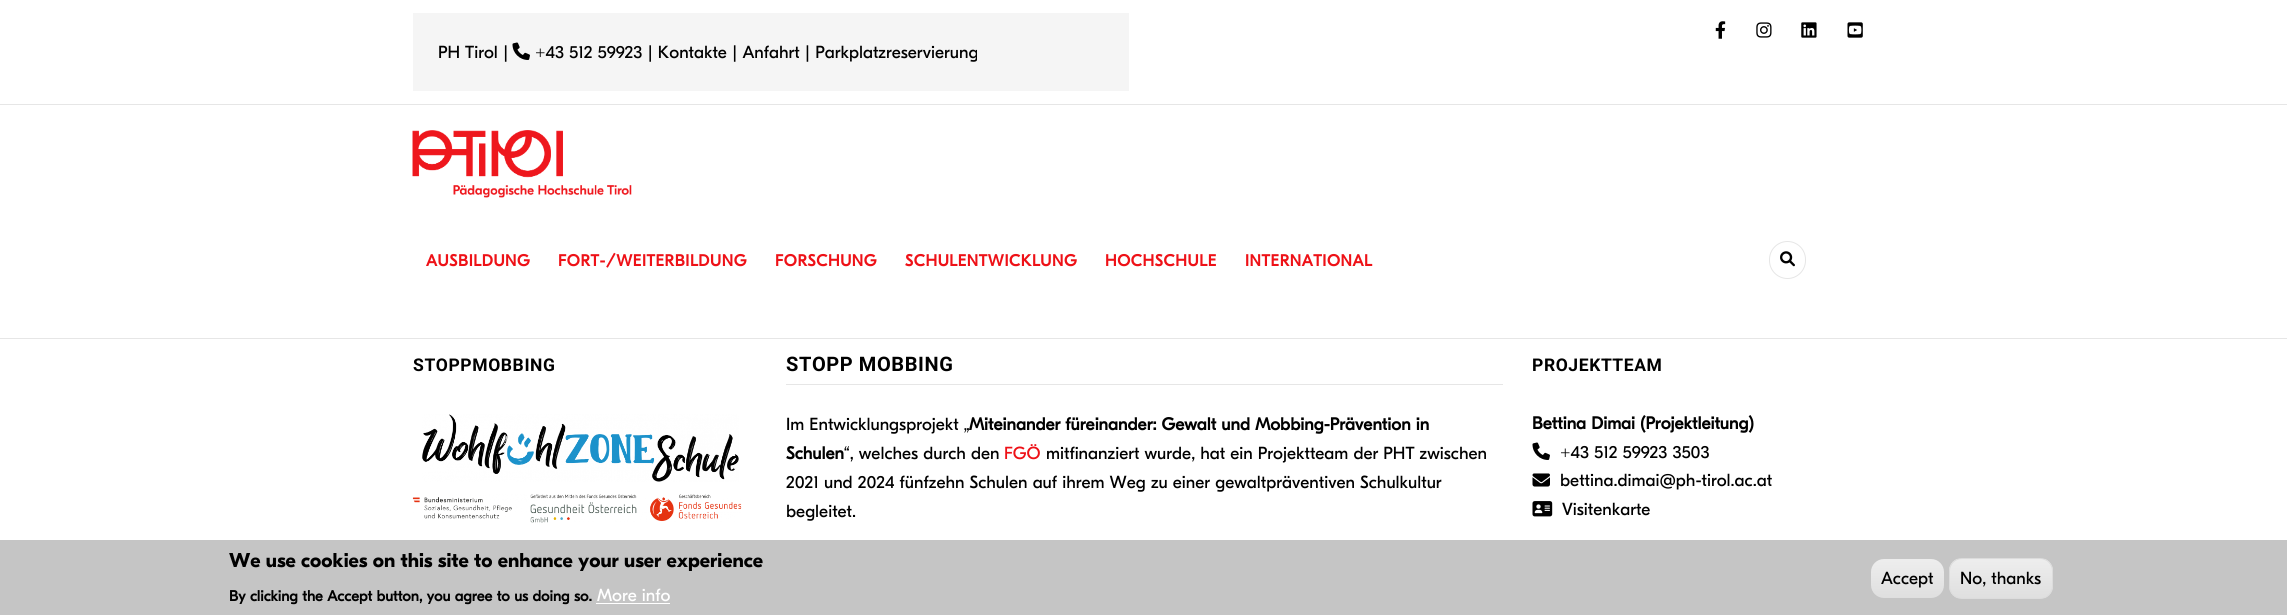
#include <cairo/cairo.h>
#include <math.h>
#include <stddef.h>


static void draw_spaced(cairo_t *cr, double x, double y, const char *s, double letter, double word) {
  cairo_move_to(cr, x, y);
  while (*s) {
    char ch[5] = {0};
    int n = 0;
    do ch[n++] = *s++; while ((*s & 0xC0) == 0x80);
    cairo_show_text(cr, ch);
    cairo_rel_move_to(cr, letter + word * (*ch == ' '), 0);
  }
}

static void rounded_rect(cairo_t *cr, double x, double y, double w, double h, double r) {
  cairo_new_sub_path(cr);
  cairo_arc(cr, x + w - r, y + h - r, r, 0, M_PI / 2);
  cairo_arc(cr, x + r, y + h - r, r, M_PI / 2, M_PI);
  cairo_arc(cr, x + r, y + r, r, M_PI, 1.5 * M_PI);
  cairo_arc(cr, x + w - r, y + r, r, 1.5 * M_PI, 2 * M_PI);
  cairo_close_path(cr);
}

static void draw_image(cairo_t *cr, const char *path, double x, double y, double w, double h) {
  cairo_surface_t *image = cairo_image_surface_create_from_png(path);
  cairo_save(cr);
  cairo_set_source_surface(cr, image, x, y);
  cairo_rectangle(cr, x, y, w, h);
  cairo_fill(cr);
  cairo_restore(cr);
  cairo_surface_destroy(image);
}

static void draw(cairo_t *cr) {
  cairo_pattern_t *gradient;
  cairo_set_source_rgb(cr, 1, 1, 1);
  cairo_paint(cr);
  cairo_set_source_rgb(cr, 230 / 255.0, 230 / 255.0, 230 / 255.0);
  cairo_rectangle(cr, 0, 104, 2287, 1);
  cairo_fill(cr);
  draw_image(cr, "images/1.png", 1715, 21, 11, 18);
  draw_image(cr, "images/2.png", 1756, 22, 16, 16);
  draw_image(cr, "images/3.png", 1801, 22, 16, 16);
  draw_image(cr, "images/4.png", 1847, 22, 16, 16);
  cairo_set_source_rgb(cr, 245 / 255.0, 245 / 255.0, 245 / 255.0);
  cairo_rectangle(cr, 413, 13, 716, 78);
  cairo_fill(cr);
  draw_image(cr, "images/5.png", 512, 42, 18, 18);
  cairo_set_source_rgb(cr, 230 / 255.0, 230 / 255.0, 230 / 255.0);
  cairo_rectangle(cr, 0, 338, 2287, 1);
  cairo_fill(cr);
  draw_image(cr, "images/6.png", 412, 130, 220, 68);
  rounded_rect(cr, 1769.5, 241.5, 36, 37, 18);
  cairo_set_line_width(cr, 1);
  cairo_stroke(cr);
  draw_image(cr, "images/7.png", 1780, 251, 15, 16);
  draw_image(cr, "images/8.png", 422, 414, 317, 68);
  draw_image(cr, "images/9.png", 412, 494, 330, 29);
  cairo_rectangle(cr, 786, 384, 717, 1);
  cairo_fill(cr);
  draw_image(cr, "images/10.png", 1532, 442, 18, 18);
  draw_image(cr, "images/11.png", 1532, 473, 18, 14);
  draw_image(cr, "images/12.png", 1532, 501, 21, 16);
  cairo_set_source_rgb(cr, 197 / 255.0, 197 / 255.0, 197 / 255.0);
  cairo_rectangle(cr, 0, 540, 2287, 75);
  cairo_fill(cr);
  cairo_set_source_rgb(cr, 1, 1, 1);
  cairo_rectangle(cr, 596, 603, 74, 1);
  cairo_fill(cr);
  gradient = cairo_pattern_create_linear(1908, 559, 1908, 598);
  cairo_pattern_add_color_stop_rgba(gradient, 0.05, 237 / 255.0, 237 / 255.0, 237 / 255.0, 1);
  cairo_pattern_add_color_stop_rgba(gradient, 1, 223 / 255.0, 223 / 255.0, 223 / 255.0, 1);
  cairo_set_source(cr, gradient);
  cairo_pattern_destroy(gradient);
  rounded_rect(cr, 1871, 559, 73, 39, 13);
  cairo_fill(cr);
  cairo_save(cr);
  rounded_rect(cr, 1949, 558, 104, 41, 13);
  cairo_clip(cr);
  gradient = cairo_pattern_create_linear(2001, 559, 2001, 598);
  cairo_pattern_add_color_stop_rgba(gradient, 0.05, 237 / 255.0, 237 / 255.0, 237 / 255.0, 1);
  cairo_pattern_add_color_stop_rgba(gradient, 1, 223 / 255.0, 223 / 255.0, 223 / 255.0, 1);
  cairo_set_source(cr, gradient);
  cairo_pattern_destroy(gradient);
  cairo_rectangle(cr, 1949, 559, 104, 39);
  cairo_fill(cr);
  cairo_restore(cr);
  rounded_rect(cr, 1949.5, 558.5, 103, 40, 12.5);
  cairo_set_source_rgb(cr, 220 / 255.0, 220 / 255.0, 220 / 255.0);
  cairo_stroke(cr);
  cairo_select_font_face(cr, "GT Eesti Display", CAIRO_FONT_SLANT_NORMAL, CAIRO_FONT_WEIGHT_NORMAL);
  cairo_set_font_size(cr, 17.5);
  cairo_set_source_rgb(cr, 0, 0, 0);
  cairo_move_to(cr, 438, 58);
  cairo_show_text(cr, "PH Tirol |");
  cairo_move_to(cr, 535, 58);
  cairo_show_text(cr, "+43 512 59923 | Kontakte | Anfahrt | Parkplatzreservierung");
  cairo_select_font_face(cr, "GT Eesti Display", CAIRO_FONT_SLANT_NORMAL, CAIRO_FONT_WEIGHT_BOLD);
  cairo_set_font_size(cr, 16.25);
  cairo_set_source_rgb(cr, 238 / 255.0, 17 / 255.0, 23 / 255.0);
  draw_spaced(cr, 426, 266, "AUSBILDUNG", 0.6, 0);
  draw_spaced(cr, 558, 266, "FORT-/WEITERBILDUNG", 0.6, 0);
  draw_spaced(cr, 775, 266, "FORSCHUNG", 0.6, 0);
  draw_spaced(cr, 905, 266, "SCHULENTWICKLUNG", 0.6, 0);
  draw_spaced(cr, 1105, 266, "HOCHSCHULE", 0.6, 0);
  draw_spaced(cr, 1245, 266, "INTERNATIONAL", 0.6, 0);
  cairo_select_font_face(cr, "Roboto", CAIRO_FONT_SLANT_NORMAL, CAIRO_FONT_WEIGHT_BOLD);
  cairo_set_font_size(cr, 17.5);
  cairo_set_source_rgb(cr, 0, 0, 0);
  draw_spaced(cr, 413, 371, "STOPPMOBBING", 0.6, 0);
  cairo_set_font_size(cr, 20);
  draw_spaced(cr, 786, 371, "STOPP MOBBING", 0.6, 0);
  cairo_select_font_face(cr, "GT Eesti Display", CAIRO_FONT_SLANT_NORMAL, CAIRO_FONT_WEIGHT_NORMAL);
  cairo_set_font_size(cr, 17.5);
  cairo_move_to(cr, 786, 430);
  cairo_show_text(cr, "Im Entwicklungsprojekt „");
  cairo_select_font_face(cr, "GT Eesti Display", CAIRO_FONT_SLANT_NORMAL, CAIRO_FONT_WEIGHT_BOLD);
  cairo_move_to(cr, 969, 430);
  cairo_show_text(cr, "Miteinander füreinander: Gewalt und Mobbing-Prävention in");
  cairo_move_to(cr, 786, 459);
  cairo_show_text(cr, "Schulen");
  cairo_select_font_face(cr, "GT Eesti Display", CAIRO_FONT_SLANT_NORMAL, CAIRO_FONT_WEIGHT_NORMAL);
  cairo_move_to(cr, 844, 459);
  cairo_show_text(cr, "“, welches durch den");
  cairo_set_source_rgb(cr, 238 / 255.0, 17 / 255.0, 23 / 255.0);
  cairo_move_to(cr, 1004, 459);
  cairo_show_text(cr, "FGÖ");
  cairo_set_source_rgb(cr, 0, 0, 0);
  cairo_move_to(cr, 1046, 459);
  cairo_show_text(cr, "mitfinanziert wurde, hat ein Projektteam der PHT zwischen");
  cairo_move_to(cr, 786, 488);
  cairo_show_text(cr, "2021 und 2024 fünfzehn Schulen auf ihrem Weg zu einer gewaltpräventiven Schulkultur");
  cairo_move_to(cr, 786, 517);
  cairo_show_text(cr, "begleitet.");
  cairo_select_font_face(cr, "Roboto", CAIRO_FONT_SLANT_NORMAL, CAIRO_FONT_WEIGHT_BOLD);
  draw_spaced(cr, 1532, 371, "PROJEKTTEAM", 0.6, 0);
  cairo_select_font_face(cr, "GT Eesti Display", CAIRO_FONT_SLANT_NORMAL, CAIRO_FONT_WEIGHT_BOLD);
  cairo_move_to(cr, 1532, 429);
  cairo_show_text(cr, "Bettina Dimai (Projektleitung)");
  cairo_select_font_face(cr, "GT Eesti Display", CAIRO_FONT_SLANT_NORMAL, CAIRO_FONT_WEIGHT_NORMAL);
  cairo_move_to(cr, 1560, 458);
  cairo_show_text(cr, "+43 512 59923 3503");
  cairo_move_to(cr, 1560, 486);
  cairo_show_text(cr, "bettina.dimai@ph-tirol.ac.at");
  cairo_move_to(cr, 1562, 515);
  cairo_show_text(cr, "Visitenkarte");
  cairo_select_font_face(cr, "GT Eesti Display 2", CAIRO_FONT_SLANT_NORMAL, CAIRO_FONT_WEIGHT_BOLD);
  cairo_set_font_size(cr, 20);
  cairo_move_to(cr, 229, 567);
  cairo_show_text(cr, "We use cookies on this site to enhance your user experience");
  cairo_select_font_face(cr, "GT Eesti Display", CAIRO_FONT_SLANT_NORMAL, CAIRO_FONT_WEIGHT_BOLD);
  cairo_set_font_size(cr, 15);
  cairo_move_to(cr, 229, 601);
  cairo_show_text(cr, "By clicking the Accept button, you agree to us doing so.");
  cairo_select_font_face(cr, "GT Eesti Display", CAIRO_FONT_SLANT_NORMAL, CAIRO_FONT_WEIGHT_NORMAL);
  cairo_set_font_size(cr, 17.5);
  cairo_set_source_rgb(cr, 1, 1, 1);
  cairo_move_to(cr, 597, 601);
  cairo_show_text(cr, "More info");
  cairo_set_source_rgb(cr, 0, 0, 0);
  cairo_move_to(cr, 1881, 584);
  cairo_show_text(cr, "Accept");
  cairo_move_to(cr, 1960, 584);
  cairo_show_text(cr, "No, thanks");
}

int main(void) {
  cairo_surface_t *surface = cairo_image_surface_create(CAIRO_FORMAT_RGB24, 2287, 615);
  cairo_t *cr = cairo_create(surface);
  cairo_font_options_t *options = cairo_font_options_create();
  cairo_font_options_set_hint_metrics(options, CAIRO_HINT_METRICS_OFF);
  cairo_font_options_set_hint_style(options, CAIRO_HINT_STYLE_NONE);
  cairo_set_font_options(cr, options);
  cairo_set_miter_limit(cr, 4);
  draw(cr);
  cairo_surface_write_to_png(surface, "out.png");
  cairo_font_options_destroy(options);
  cairo_destroy(cr);
  cairo_surface_destroy(surface);
  return 0;
}
